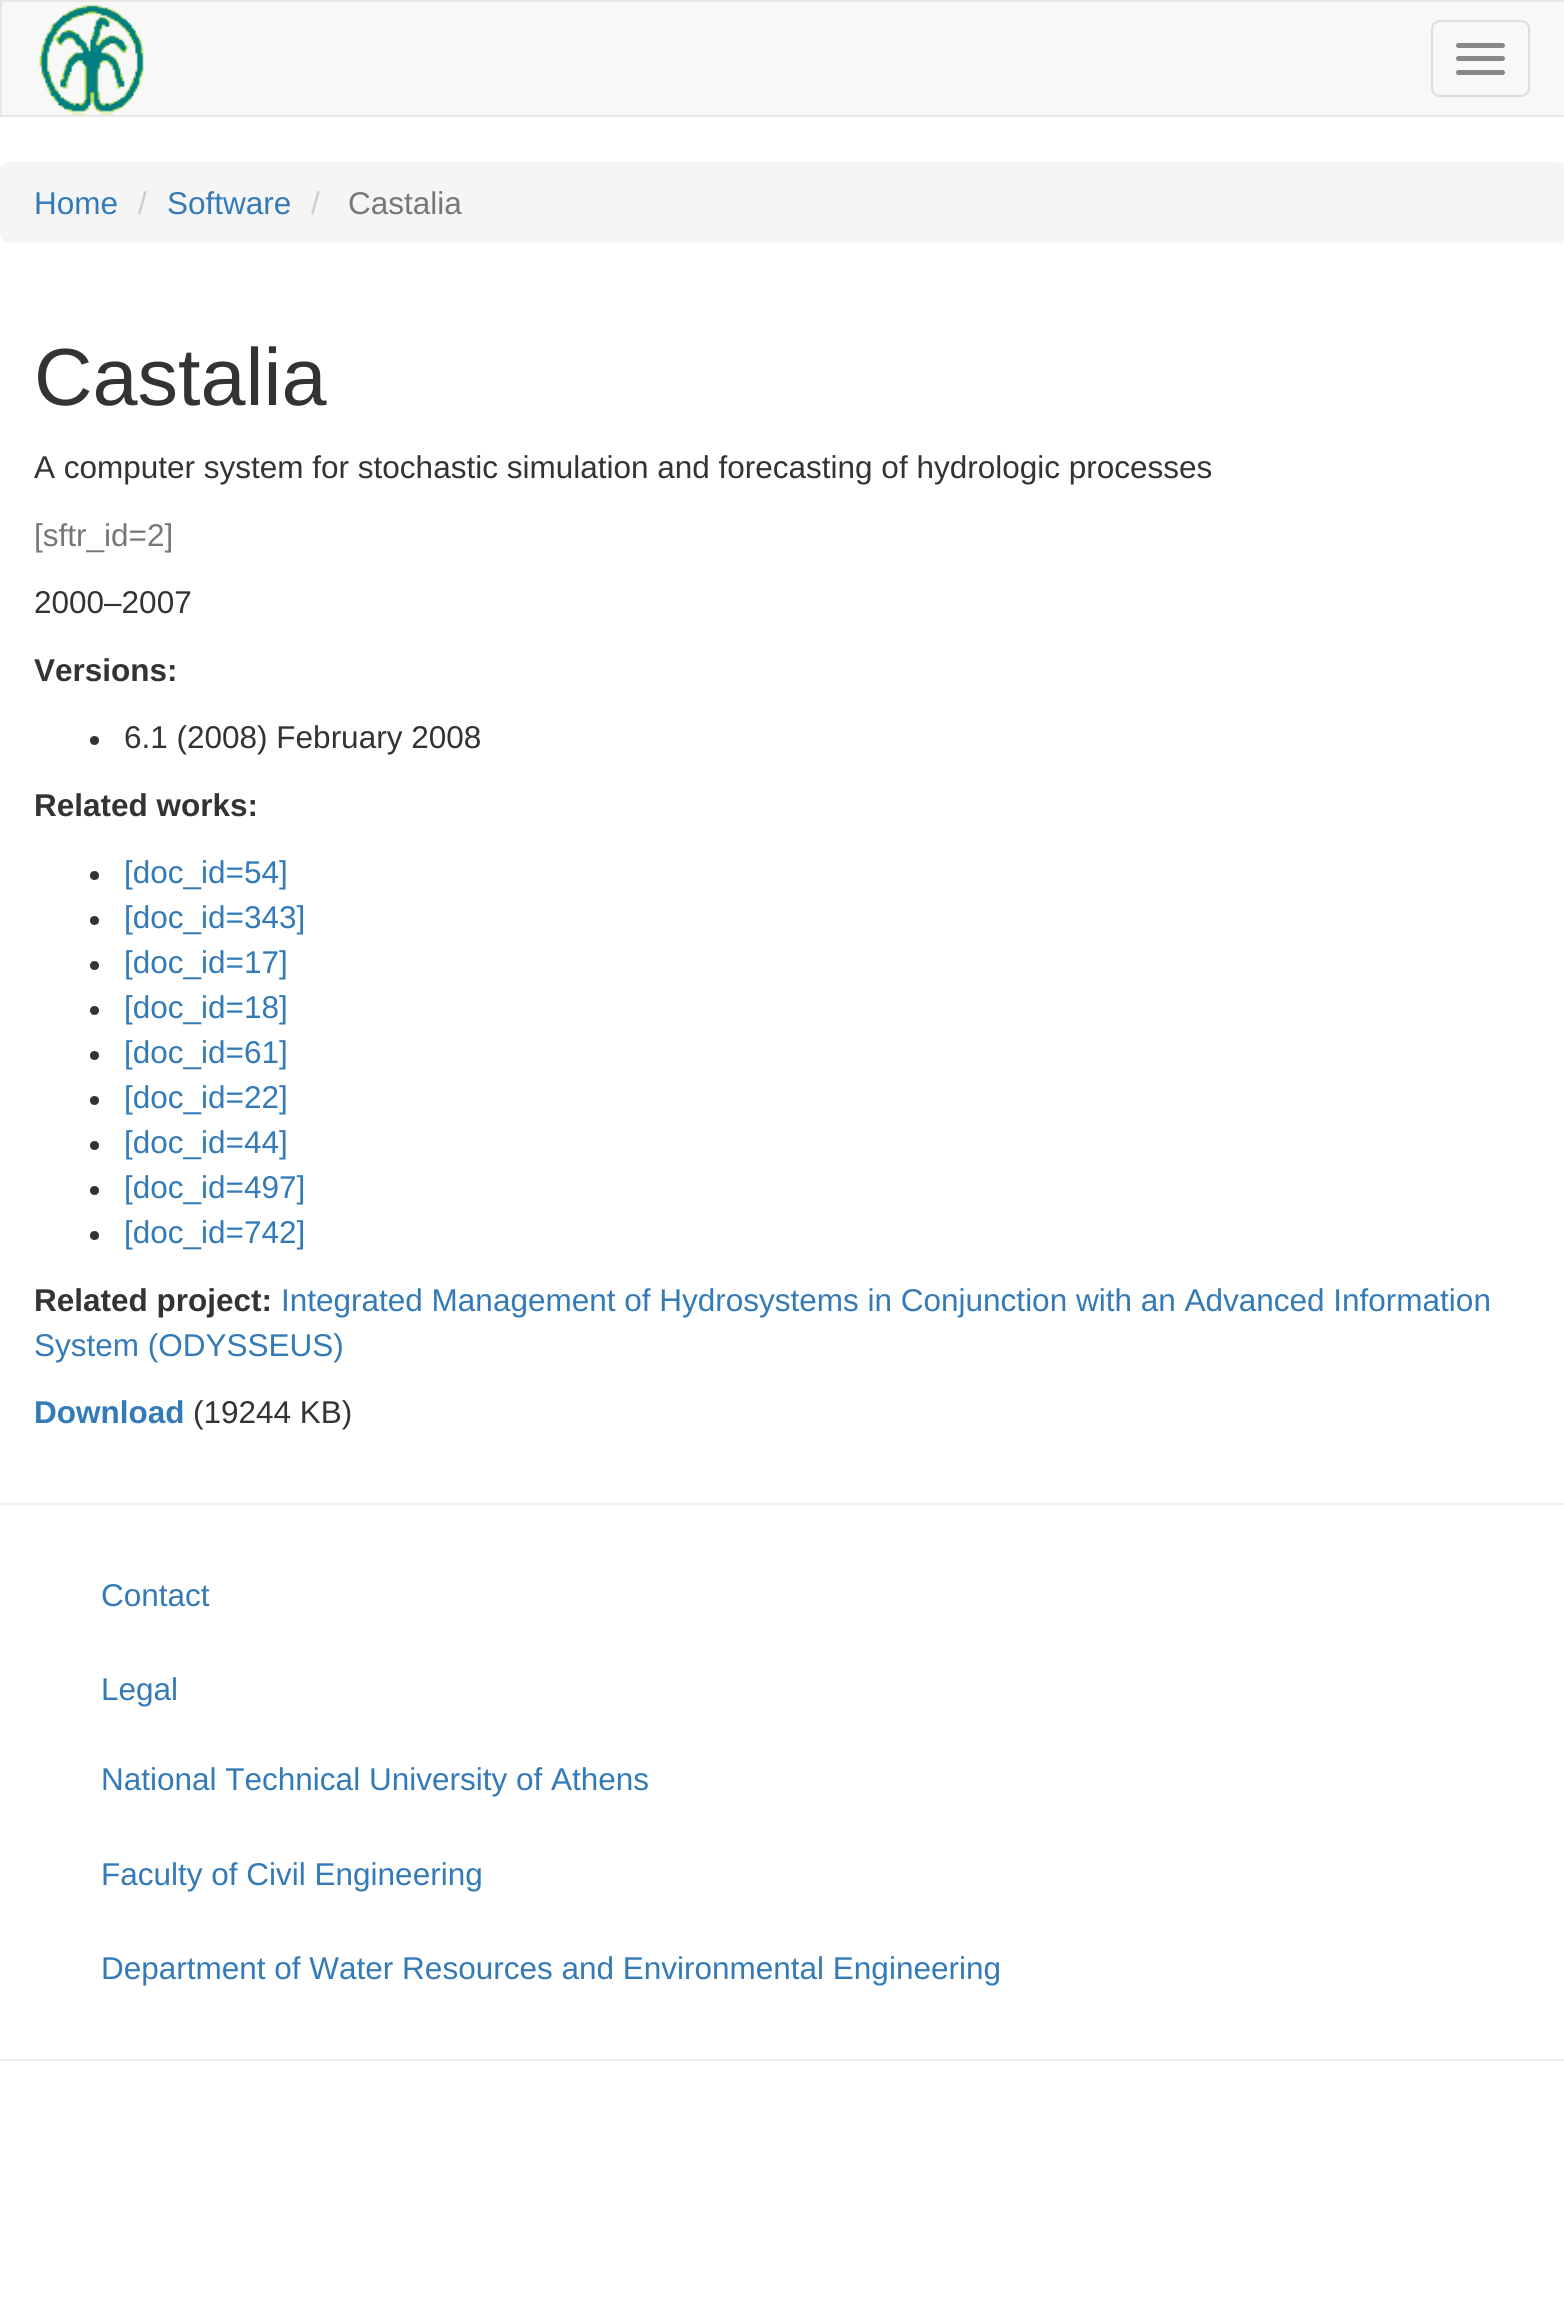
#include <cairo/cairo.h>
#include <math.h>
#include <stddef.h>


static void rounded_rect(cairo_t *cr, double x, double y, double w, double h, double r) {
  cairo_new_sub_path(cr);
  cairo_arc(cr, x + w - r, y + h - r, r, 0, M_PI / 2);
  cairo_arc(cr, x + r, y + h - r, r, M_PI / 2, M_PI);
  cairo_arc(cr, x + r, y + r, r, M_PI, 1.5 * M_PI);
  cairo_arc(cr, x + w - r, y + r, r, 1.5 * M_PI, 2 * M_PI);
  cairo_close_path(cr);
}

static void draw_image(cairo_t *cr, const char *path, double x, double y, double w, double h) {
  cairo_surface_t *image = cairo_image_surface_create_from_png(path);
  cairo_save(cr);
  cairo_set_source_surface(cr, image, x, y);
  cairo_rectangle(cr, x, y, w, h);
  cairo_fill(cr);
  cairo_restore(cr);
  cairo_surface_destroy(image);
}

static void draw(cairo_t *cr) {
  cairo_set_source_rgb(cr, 1, 1, 1);
  cairo_paint(cr);
  cairo_set_source_rgb(cr, 248 / 255.0, 248 / 255.0, 248 / 255.0);
  cairo_rectangle(cr, 1, 1, 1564, 115);
  cairo_fill_preserve(cr);
  cairo_set_source_rgb(cr, 231 / 255.0, 231 / 255.0, 231 / 255.0);
  cairo_stroke(cr);
  draw_image(cr, "images/1.png", 39, 3, 105, 112);
  rounded_rect(cr, 1432, 21, 97, 75, 8);
  cairo_set_source_rgb(cr, 221 / 255.0, 221 / 255.0, 221 / 255.0);
  cairo_stroke(cr);
  cairo_set_source_rgb(cr, 136 / 255.0, 136 / 255.0, 136 / 255.0);
  rounded_rect(cr, 1456, 43, 49, 5, 2.5);
  cairo_fill(cr);
  rounded_rect(cr, 1456, 56, 49, 5, 2.5);
  cairo_fill(cr);
  rounded_rect(cr, 1456, 70, 49, 5, 2.5);
  cairo_fill(cr);
  cairo_set_source_rgb(cr, 245 / 255.0, 245 / 255.0, 245 / 255.0);
  rounded_rect(cr, 0, 162, 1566, 81, 9);
  cairo_fill(cr);
  cairo_set_source_rgb(cr, 51 / 255.0, 51 / 255.0, 51 / 255.0);
  cairo_arc(cr, 94.5, 740.5, 4.5, 0, 2 * M_PI);
  cairo_fill(cr);
  cairo_arc(cr, 94.5, 875.5, 4.5, 0, 2 * M_PI);
  cairo_fill(cr);
  cairo_arc(cr, 94.5, 920.5, 4.5, 0, 2 * M_PI);
  cairo_fill(cr);
  cairo_arc(cr, 94.5, 965.5, 4.5, 0, 2 * M_PI);
  cairo_fill(cr);
  cairo_arc(cr, 94.5, 1010.5, 4.5, 0, 2 * M_PI);
  cairo_fill(cr);
  cairo_arc(cr, 94.5, 1055.5, 4.5, 0, 2 * M_PI);
  cairo_fill(cr);
  cairo_arc(cr, 94.5, 1100.5, 4.5, 0, 2 * M_PI);
  cairo_fill(cr);
  cairo_arc(cr, 94.5, 1145.5, 4.5, 0, 2 * M_PI);
  cairo_fill(cr);
  cairo_arc(cr, 94.5, 1190.5, 4.5, 0, 2 * M_PI);
  cairo_fill(cr);
  cairo_arc(cr, 94.5, 1235.5, 4.5, 0, 2 * M_PI);
  cairo_fill(cr);
  cairo_set_source_rgb(cr, 238 / 255.0, 238 / 255.0, 238 / 255.0);
  cairo_rectangle(cr, 0, 1503, 1564, 2);
  cairo_fill(cr);
  cairo_rectangle(cr, 0, 2059, 1564, 2);
  cairo_fill(cr);
  cairo_select_font_face(cr, "Liberation Sans", CAIRO_FONT_SLANT_NORMAL, CAIRO_FONT_WEIGHT_NORMAL);
  cairo_set_font_size(cr, 31.5);
  cairo_set_source_rgb(cr, 51 / 255.0, 122 / 255.0, 183 / 255.0);
  cairo_move_to(cr, 34, 214);
  cairo_show_text(cr, "Home");
  cairo_set_source_rgb(cr, 204 / 255.0, 204 / 255.0, 204 / 255.0);
  cairo_move_to(cr, 138, 214);
  cairo_show_text(cr, "/");
  cairo_set_source_rgb(cr, 51 / 255.0, 122 / 255.0, 183 / 255.0);
  cairo_move_to(cr, 167, 214);
  cairo_show_text(cr, "Software");
  cairo_set_source_rgb(cr, 204 / 255.0, 204 / 255.0, 204 / 255.0);
  cairo_move_to(cr, 311, 214);
  cairo_show_text(cr, "/");
  cairo_set_source_rgb(cr, 119 / 255.0, 119 / 255.0, 119 / 255.0);
  cairo_move_to(cr, 348, 214);
  cairo_show_text(cr, "Castalia");
  cairo_set_font_size(cr, 81);
  cairo_set_source_rgb(cr, 51 / 255.0, 51 / 255.0, 51 / 255.0);
  cairo_move_to(cr, 34, 405);
  cairo_show_text(cr, "Castalia");
  cairo_set_font_size(cr, 31.5);
  cairo_move_to(cr, 34, 478);
  cairo_show_text(cr, "A computer system for stochastic simulation and forecasting of hydrologic processes");
  cairo_set_source_rgb(cr, 119 / 255.0, 119 / 255.0, 119 / 255.0);
  cairo_move_to(cr, 34, 546);
  cairo_show_text(cr, "[sftr_id=2]");
  cairo_set_source_rgb(cr, 51 / 255.0, 51 / 255.0, 51 / 255.0);
  cairo_move_to(cr, 34, 613);
  cairo_show_text(cr, "2000–2007");
  cairo_select_font_face(cr, "Liberation Sans", CAIRO_FONT_SLANT_NORMAL, CAIRO_FONT_WEIGHT_BOLD);
  cairo_move_to(cr, 34, 681);
  cairo_show_text(cr, "Versions:");
  cairo_select_font_face(cr, "Liberation Sans", CAIRO_FONT_SLANT_NORMAL, CAIRO_FONT_WEIGHT_NORMAL);
  cairo_move_to(cr, 124, 748);
  cairo_show_text(cr, "6.1 (2008) February 2008");
  cairo_select_font_face(cr, "Liberation Sans", CAIRO_FONT_SLANT_NORMAL, CAIRO_FONT_WEIGHT_BOLD);
  cairo_move_to(cr, 34, 816);
  cairo_show_text(cr, "Related works:");
  cairo_select_font_face(cr, "Liberation Sans", CAIRO_FONT_SLANT_NORMAL, CAIRO_FONT_WEIGHT_NORMAL);
  cairo_set_source_rgb(cr, 51 / 255.0, 122 / 255.0, 183 / 255.0);
  cairo_move_to(cr, 124, 883);
  cairo_show_text(cr, "[doc_id=54]");
  cairo_move_to(cr, 124, 928);
  cairo_show_text(cr, "[doc_id=343]");
  cairo_move_to(cr, 124, 973);
  cairo_show_text(cr, "[doc_id=17]");
  cairo_move_to(cr, 124, 1018);
  cairo_show_text(cr, "[doc_id=18]");
  cairo_move_to(cr, 124, 1063);
  cairo_show_text(cr, "[doc_id=61]");
  cairo_move_to(cr, 124, 1108);
  cairo_show_text(cr, "[doc_id=22]");
  cairo_move_to(cr, 124, 1153);
  cairo_show_text(cr, "[doc_id=44]");
  cairo_move_to(cr, 124, 1198);
  cairo_show_text(cr, "[doc_id=497]");
  cairo_move_to(cr, 124, 1243);
  cairo_show_text(cr, "[doc_id=742]");
  cairo_select_font_face(cr, "Liberation Sans", CAIRO_FONT_SLANT_NORMAL, CAIRO_FONT_WEIGHT_BOLD);
  cairo_set_source_rgb(cr, 51 / 255.0, 51 / 255.0, 51 / 255.0);
  cairo_move_to(cr, 34, 1311);
  cairo_show_text(cr, "Related project:");
  cairo_select_font_face(cr, "Liberation Sans", CAIRO_FONT_SLANT_NORMAL, CAIRO_FONT_WEIGHT_NORMAL);
  cairo_set_source_rgb(cr, 51 / 255.0, 122 / 255.0, 183 / 255.0);
  cairo_move_to(cr, 281, 1311);
  cairo_show_text(cr, "Integrated Management of Hydrosystems in Conjunction with an Advanced Information");
  cairo_move_to(cr, 34, 1356);
  cairo_show_text(cr, "System (ODYSSEUS)");
  cairo_select_font_face(cr, "Liberation Sans", CAIRO_FONT_SLANT_NORMAL, CAIRO_FONT_WEIGHT_BOLD);
  cairo_move_to(cr, 34, 1423);
  cairo_show_text(cr, "Download");
  cairo_select_font_face(cr, "Liberation Sans", CAIRO_FONT_SLANT_NORMAL, CAIRO_FONT_WEIGHT_NORMAL);
  cairo_set_source_rgb(cr, 51 / 255.0, 51 / 255.0, 51 / 255.0);
  cairo_move_to(cr, 193, 1423);
  cairo_show_text(cr, "(19244 KB)");
  cairo_set_source_rgb(cr, 51 / 255.0, 122 / 255.0, 183 / 255.0);
  cairo_move_to(cr, 101, 1606);
  cairo_show_text(cr, "Contact");
  cairo_move_to(cr, 101, 1700);
  cairo_show_text(cr, "Legal");
  cairo_move_to(cr, 101, 1790);
  cairo_show_text(cr, "National Technical University of Athens");
  cairo_move_to(cr, 101, 1885);
  cairo_show_text(cr, "Faculty of Civil Engineering");
  cairo_move_to(cr, 101, 1979);
  cairo_show_text(cr, "Department of Water Resources and Environmental Engineering");
}

int main(void) {
  cairo_surface_t *surface = cairo_image_surface_create(CAIRO_FORMAT_RGB24, 1564, 2315);
  cairo_t *cr = cairo_create(surface);
  cairo_font_options_t *options = cairo_font_options_create();
  cairo_font_options_set_hint_metrics(options, CAIRO_HINT_METRICS_OFF);
  cairo_font_options_set_hint_style(options, CAIRO_HINT_STYLE_NONE);
  cairo_set_font_options(cr, options);
  cairo_set_miter_limit(cr, 4);
  draw(cr);
  cairo_surface_write_to_png(surface, "out.png");
  cairo_font_options_destroy(options);
  cairo_destroy(cr);
  cairo_surface_destroy(surface);
  return 0;
}
